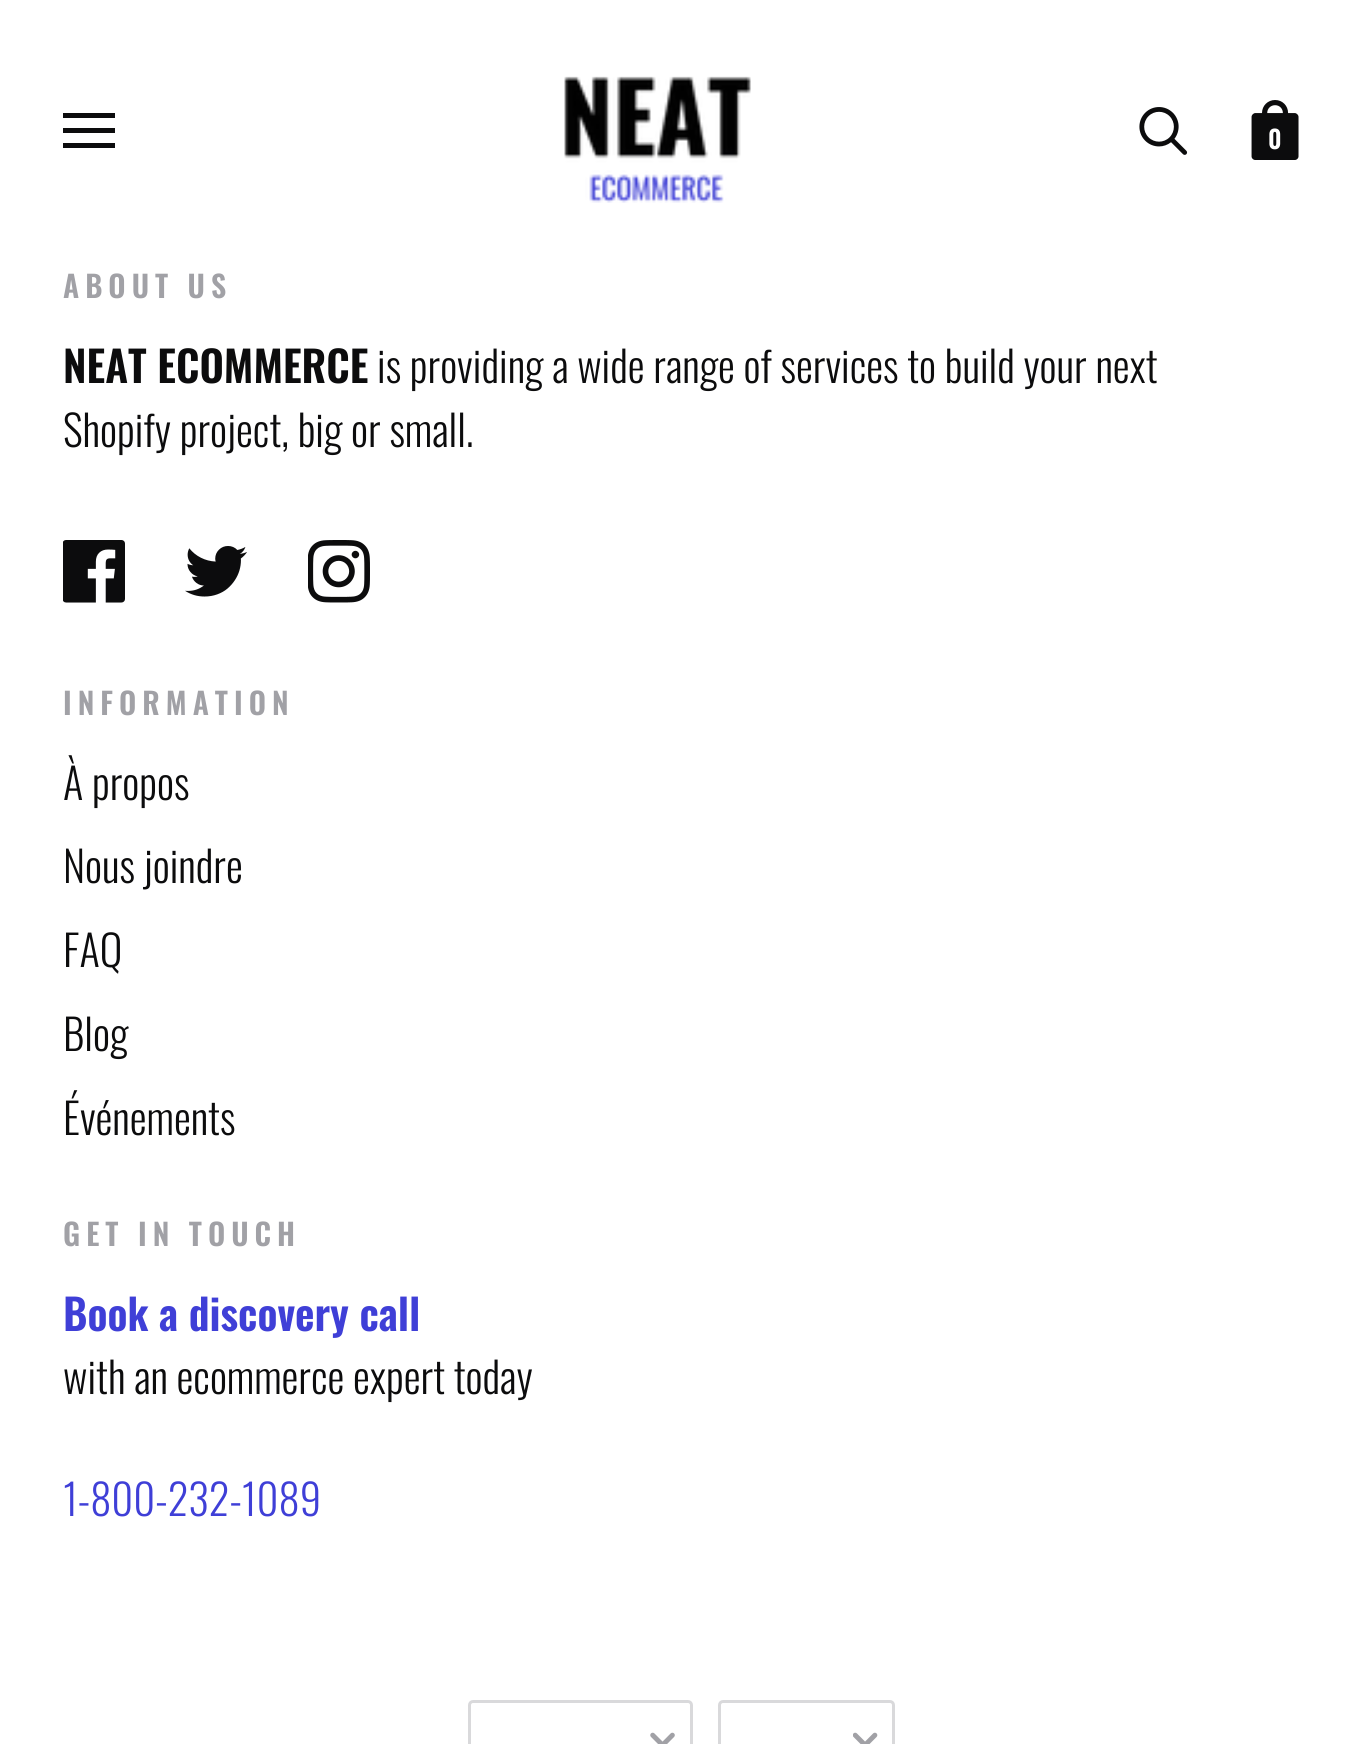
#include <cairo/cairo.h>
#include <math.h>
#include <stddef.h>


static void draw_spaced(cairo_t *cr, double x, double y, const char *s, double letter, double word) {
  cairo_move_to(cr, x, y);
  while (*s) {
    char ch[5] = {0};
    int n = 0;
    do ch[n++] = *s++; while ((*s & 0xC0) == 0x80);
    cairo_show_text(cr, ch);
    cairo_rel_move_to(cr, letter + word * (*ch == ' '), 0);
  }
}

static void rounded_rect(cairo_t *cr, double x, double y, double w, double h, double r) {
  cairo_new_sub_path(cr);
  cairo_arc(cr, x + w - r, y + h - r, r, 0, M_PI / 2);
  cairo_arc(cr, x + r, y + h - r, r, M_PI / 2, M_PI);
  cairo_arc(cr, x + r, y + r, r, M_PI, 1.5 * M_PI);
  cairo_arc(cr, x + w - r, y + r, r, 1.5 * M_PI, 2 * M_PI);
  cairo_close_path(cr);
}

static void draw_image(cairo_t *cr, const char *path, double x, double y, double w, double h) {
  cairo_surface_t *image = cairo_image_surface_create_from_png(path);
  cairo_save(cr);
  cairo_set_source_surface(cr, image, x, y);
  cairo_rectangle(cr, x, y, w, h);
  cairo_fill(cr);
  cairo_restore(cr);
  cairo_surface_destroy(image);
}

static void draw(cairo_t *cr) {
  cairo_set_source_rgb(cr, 1, 1, 1);
  cairo_paint(cr);
  cairo_set_source_rgb(cr, 12 / 255.0, 12 / 255.0, 13 / 255.0);
  cairo_rectangle(cr, 63, 113, 52, 5);
  cairo_fill(cr);
  cairo_rectangle(cr, 63, 128, 52, 5);
  cairo_fill(cr);
  cairo_rectangle(cr, 63, 143, 52, 5);
  cairo_fill(cr);
  draw_image(cr, "images/1.png", 564, 76, 187, 127);
  draw_image(cr, "images/2.png", 1139, 107, 49, 48);
  draw_image(cr, "images/3.png", 1251, 100, 48, 60);
  draw_image(cr, "images/4.png", 63, 540, 62, 63);
  draw_image(cr, "images/5.png", 185, 546, 62, 51);
  draw_image(cr, "images/6.png", 308, 540, 62, 63);
  rounded_rect(cr, 469.5, 1701.5, 222, 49, 3.5);
  cairo_set_source_rgb(cr, 217 / 255.0, 217 / 255.0, 219 / 255.0);
  cairo_set_line_width(cr, 3);
  cairo_stroke(cr);
  draw_image(cr, "images/7.png", 650, 1732, 25, 12);
  rounded_rect(cr, 719.5, 1701.5, 174, 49, 3.5);
  cairo_stroke(cr);
  draw_image(cr, "images/8.png", 853, 1732, 25, 12);
  cairo_select_font_face(cr, "Oswald SemiBold", CAIRO_FONT_SLANT_NORMAL, CAIRO_FONT_WEIGHT_NORMAL);
  cairo_set_font_size(cr, 25);
  cairo_set_source_rgb(cr, 1, 1, 1);
  cairo_move_to(cr, 1268, 149);
  cairo_show_text(cr, "0");
  cairo_set_font_size(cr, 30);
  cairo_set_source_rgb(cr, 161 / 255.0, 161 / 255.0, 166 / 255.0);
  draw_spaced(cr, 63, 298, "ABOUT US", 6, 0);
  cairo_set_font_size(cr, 42.5);
  cairo_set_source_rgb(cr, 12 / 255.0, 12 / 255.0, 13 / 255.0);
  cairo_move_to(cr, 63, 383);
  cairo_show_text(cr, "NEAT ECOMMERCE");
  cairo_select_font_face(cr, "Oswald Light", CAIRO_FONT_SLANT_NORMAL, CAIRO_FONT_WEIGHT_NORMAL);
  cairo_move_to(cr, 377, 383);
  cairo_show_text(cr, "is providing a wide range of services to build your next");
  cairo_move_to(cr, 63, 447);
  cairo_show_text(cr, "Shopify project, big or small.");
  cairo_select_font_face(cr, "Oswald SemiBold", CAIRO_FONT_SLANT_NORMAL, CAIRO_FONT_WEIGHT_NORMAL);
  cairo_set_font_size(cr, 30);
  cairo_set_source_rgb(cr, 161 / 255.0, 161 / 255.0, 166 / 255.0);
  draw_spaced(cr, 63, 715, "INFORMATION", 6, 0);
  cairo_select_font_face(cr, "Oswald Light", CAIRO_FONT_SLANT_NORMAL, CAIRO_FONT_WEIGHT_NORMAL);
  cairo_set_font_size(cr, 42.5);
  cairo_set_source_rgb(cr, 12 / 255.0, 12 / 255.0, 13 / 255.0);
  cairo_move_to(cr, 63, 800);
  cairo_show_text(cr, "À propos");
  cairo_move_to(cr, 63, 883);
  cairo_show_text(cr, "Nous joindre");
  cairo_move_to(cr, 63, 967);
  cairo_show_text(cr, "FAQ");
  cairo_move_to(cr, 63, 1051);
  cairo_show_text(cr, "Blog");
  cairo_move_to(cr, 63, 1135);
  cairo_show_text(cr, "Événements");
  cairo_select_font_face(cr, "Oswald SemiBold", CAIRO_FONT_SLANT_NORMAL, CAIRO_FONT_WEIGHT_NORMAL);
  cairo_set_font_size(cr, 30);
  cairo_set_source_rgb(cr, 161 / 255.0, 161 / 255.0, 166 / 255.0);
  draw_spaced(cr, 63, 1246, "GET IN TOUCH", 6, 0);
  cairo_set_font_size(cr, 42.5);
  cairo_set_source_rgb(cr, 63 / 255.0, 63 / 255.0, 215 / 255.0);
  cairo_move_to(cr, 63, 1331);
  cairo_show_text(cr, "Book a discovery call");
  cairo_select_font_face(cr, "Oswald Light", CAIRO_FONT_SLANT_NORMAL, CAIRO_FONT_WEIGHT_NORMAL);
  cairo_set_source_rgb(cr, 12 / 255.0, 12 / 255.0, 13 / 255.0);
  cairo_move_to(cr, 63, 1394);
  cairo_show_text(cr, "with an ecommerce expert today");
  cairo_set_source_rgb(cr, 63 / 255.0, 63 / 255.0, 215 / 255.0);
  cairo_move_to(cr, 63, 1516);
  cairo_show_text(cr, "1-800-232-1089");
}

int main(void) {
  cairo_surface_t *surface = cairo_image_surface_create(CAIRO_FORMAT_RGB24, 1362, 1744);
  cairo_t *cr = cairo_create(surface);
  cairo_font_options_t *options = cairo_font_options_create();
  cairo_font_options_set_hint_metrics(options, CAIRO_HINT_METRICS_OFF);
  cairo_font_options_set_hint_style(options, CAIRO_HINT_STYLE_NONE);
  cairo_set_font_options(cr, options);
  cairo_set_miter_limit(cr, 4);
  draw(cr);
  cairo_surface_write_to_png(surface, "out.png");
  cairo_font_options_destroy(options);
  cairo_destroy(cr);
  cairo_surface_destroy(surface);
  return 0;
}
